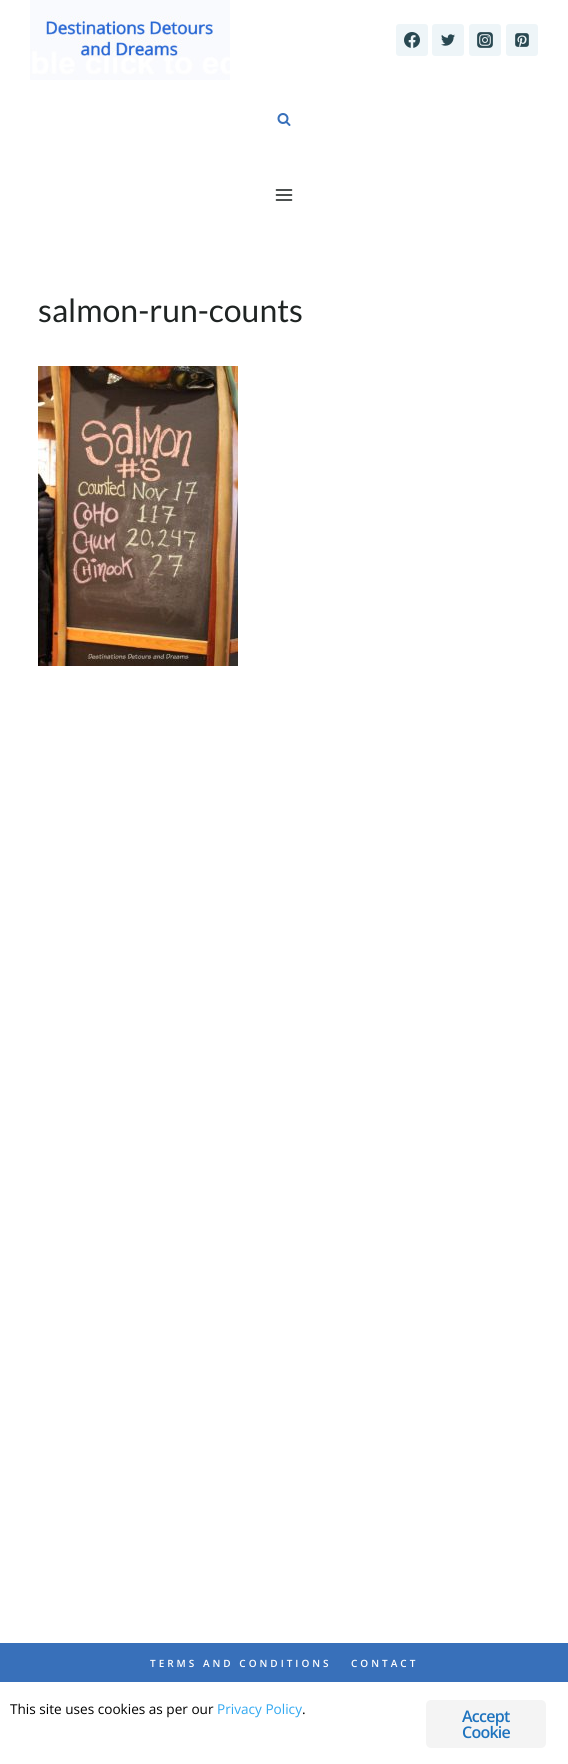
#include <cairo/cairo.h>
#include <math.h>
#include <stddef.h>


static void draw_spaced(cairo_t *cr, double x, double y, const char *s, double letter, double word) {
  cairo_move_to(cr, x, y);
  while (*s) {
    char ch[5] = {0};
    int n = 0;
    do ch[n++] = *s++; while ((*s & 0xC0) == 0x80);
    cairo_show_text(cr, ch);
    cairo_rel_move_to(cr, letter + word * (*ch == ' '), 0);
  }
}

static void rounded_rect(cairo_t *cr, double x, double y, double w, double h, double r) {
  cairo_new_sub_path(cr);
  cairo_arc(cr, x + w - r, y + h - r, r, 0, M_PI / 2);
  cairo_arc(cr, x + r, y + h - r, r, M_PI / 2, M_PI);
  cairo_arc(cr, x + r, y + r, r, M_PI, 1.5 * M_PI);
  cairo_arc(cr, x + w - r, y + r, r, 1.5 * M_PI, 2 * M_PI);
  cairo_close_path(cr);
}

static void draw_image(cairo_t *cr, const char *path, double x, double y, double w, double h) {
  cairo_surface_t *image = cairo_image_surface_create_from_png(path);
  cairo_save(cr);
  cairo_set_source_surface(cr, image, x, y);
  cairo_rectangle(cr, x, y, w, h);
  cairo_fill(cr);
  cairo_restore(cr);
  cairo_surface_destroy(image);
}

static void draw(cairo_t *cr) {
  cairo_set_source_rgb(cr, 1, 1, 1);
  cairo_paint(cr);
  draw_image(cr, "images/1.png", 30, 0, 200, 80);
  cairo_set_source_rgb(cr, 238 / 255.0, 245 / 255.0, 248 / 255.0);
  rounded_rect(cr, 396, 24, 32, 32, 3);
  cairo_fill(cr);
  draw_image(cr, "images/2.png", 404, 32, 16, 16);
  rounded_rect(cr, 432, 24, 32, 32, 3);
  cairo_fill(cr);
  draw_image(cr, "images/3.png", 441, 34, 14, 12);
  rounded_rect(cr, 469, 24, 32, 32, 3);
  cairo_fill(cr);
  draw_image(cr, "images/4.png", 477, 32, 16, 16);
  rounded_rect(cr, 506, 24, 32, 32, 3);
  cairo_fill(cr);
  draw_image(cr, "images/5.png", 515, 33, 14, 14);
  draw_image(cr, "images/6.png", 277, 113, 14, 13);
  draw_image(cr, "images/7.png", 275, 189, 18, 12);
  draw_image(cr, "images/8.png", 38, 366, 200, 300);
  cairo_set_source_rgb(cr, 56 / 255.0, 112 / 255.0, 186 / 255.0);
  cairo_rectangle(cr, 0, 1643, 568, 39);
  cairo_fill(cr);
  cairo_set_source_rgb(cr, 244 / 255.0, 244 / 255.0, 244 / 255.0);
  rounded_rect(cr, 426, 1700, 120, 48, 5);
  cairo_fill(cr);
  cairo_select_font_face(cr, "Lato", CAIRO_FONT_SLANT_NORMAL, CAIRO_FONT_WEIGHT_NORMAL);
  cairo_set_font_size(cr, 32);
  cairo_set_source_rgb(cr, 31 / 255.0, 36 / 255.0, 35 / 255.0);
  cairo_move_to(cr, 38, 322);
  cairo_show_text(cr, "salmon-run-counts");
  cairo_select_font_face(cr, "Open Sans SemiBold", CAIRO_FONT_SLANT_NORMAL, CAIRO_FONT_WEIGHT_NORMAL);
  cairo_set_font_size(cr, 10);
  cairo_set_source_rgb(cr, 1, 1, 1);
  draw_spaced(cr, 150, 1667, "TERMS AND CONDITIONS", 3, 0);
  draw_spaced(cr, 351, 1667, "CONTACT", 3, 0);
  cairo_select_font_face(cr, "Open Sans", CAIRO_FONT_SLANT_NORMAL, CAIRO_FONT_WEIGHT_NORMAL);
  cairo_set_font_size(cr, 13.6);
  cairo_set_source_rgb(cr, 0, 0, 0);
  cairo_move_to(cr, 10, 1714);
  cairo_show_text(cr, "This site uses cookies as per our");
  cairo_set_source_rgb(cr, 49 / 255.0, 168 / 255.0, 240 / 255.0);
  cairo_move_to(cr, 217, 1714);
  cairo_show_text(cr, "Privacy Policy");
  cairo_set_source_rgb(cr, 0, 0, 0);
  cairo_move_to(cr, 302, 1714);
  cairo_show_text(cr, ".");
  cairo_select_font_face(cr, "Open Sans SemiBold", CAIRO_FONT_SLANT_NORMAL, CAIRO_FONT_WEIGHT_NORMAL);
  cairo_set_font_size(cr, 16);
  cairo_set_source_rgb(cr, 30 / 255.0, 115 / 255.0, 190 / 255.0);
  draw_spaced(cr, 462, 1722, "Accept", -0.75, 0);
  draw_spaced(cr, 462, 1738, "Cookie", -0.75, 0);
}

int main(void) {
  cairo_surface_t *surface = cairo_image_surface_create(CAIRO_FORMAT_RGB24, 568, 1764);
  cairo_t *cr = cairo_create(surface);
  cairo_font_options_t *options = cairo_font_options_create();
  cairo_font_options_set_hint_metrics(options, CAIRO_HINT_METRICS_OFF);
  cairo_font_options_set_hint_style(options, CAIRO_HINT_STYLE_NONE);
  cairo_set_font_options(cr, options);
  cairo_set_miter_limit(cr, 4);
  draw(cr);
  cairo_surface_write_to_png(surface, "out.png");
  cairo_font_options_destroy(options);
  cairo_destroy(cr);
  cairo_surface_destroy(surface);
  return 0;
}
